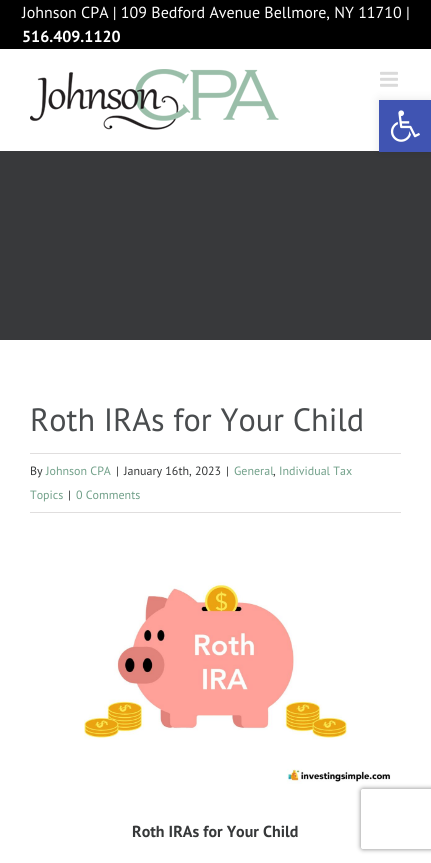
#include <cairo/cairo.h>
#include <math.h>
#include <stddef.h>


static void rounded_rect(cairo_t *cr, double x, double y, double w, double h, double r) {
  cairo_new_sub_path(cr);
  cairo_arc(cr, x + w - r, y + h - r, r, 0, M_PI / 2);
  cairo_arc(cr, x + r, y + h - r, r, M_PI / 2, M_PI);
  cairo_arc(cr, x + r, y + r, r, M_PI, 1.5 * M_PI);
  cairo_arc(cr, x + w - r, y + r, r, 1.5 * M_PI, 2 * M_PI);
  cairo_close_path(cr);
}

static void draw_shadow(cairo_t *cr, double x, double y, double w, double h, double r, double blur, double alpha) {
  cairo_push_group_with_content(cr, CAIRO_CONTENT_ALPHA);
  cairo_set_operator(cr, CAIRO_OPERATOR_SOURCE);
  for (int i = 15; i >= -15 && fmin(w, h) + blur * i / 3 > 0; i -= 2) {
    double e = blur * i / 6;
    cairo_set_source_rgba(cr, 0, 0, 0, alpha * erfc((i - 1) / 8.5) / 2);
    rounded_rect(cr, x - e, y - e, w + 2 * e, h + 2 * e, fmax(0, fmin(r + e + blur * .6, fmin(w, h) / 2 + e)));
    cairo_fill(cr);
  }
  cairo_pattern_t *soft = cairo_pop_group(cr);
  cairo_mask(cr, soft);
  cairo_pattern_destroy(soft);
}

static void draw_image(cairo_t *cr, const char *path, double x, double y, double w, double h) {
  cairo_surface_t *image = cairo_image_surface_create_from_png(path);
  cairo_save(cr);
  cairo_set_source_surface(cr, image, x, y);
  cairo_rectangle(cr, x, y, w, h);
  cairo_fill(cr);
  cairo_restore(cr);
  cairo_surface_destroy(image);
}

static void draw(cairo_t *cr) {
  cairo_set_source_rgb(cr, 1, 1, 1);
  cairo_paint(cr);
  cairo_set_source_rgb(cr, 0, 0, 0);
  cairo_rectangle(cr, 0, 0, 431, 49);
  cairo_fill(cr);
  draw_image(cr, "images/1.png", 30, 69, 249, 61);
  draw_image(cr, "images/2.png", 380, 71, 18, 16);
  cairo_set_source_rgb(cr, 56 / 255.0, 57 / 255.0, 59 / 255.0);
  cairo_rectangle(cr, 0, 151, 431, 189);
  cairo_fill(cr);
  cairo_set_source_rgb(cr, 224 / 255.0, 222 / 255.0, 222 / 255.0);
  cairo_rectangle(cr, 30, 453, 371, 1);
  cairo_fill(cr);
  cairo_rectangle(cr, 30, 512, 371, 1);
  cairo_fill(cr);
  draw_image(cr, "images/3.png", 84, 582, 307, 202);
  cairo_set_source_rgb(cr, 0, 0, 0);
  draw_shadow(cr, 379, 100, 52, 52, 0, 5, 0.1);
  cairo_set_source_rgb(cr, 64 / 255.0, 84 / 255.0, 178 / 255.0);
  cairo_rectangle(cr, 379, 100, 52, 52);
  cairo_fill(cr);
  draw_image(cr, "images/4.png", 390, 110, 30, 32);
  cairo_save(cr);
  cairo_set_fill_rule(cr, CAIRO_FILL_RULE_EVEN_ODD);
  cairo_new_path(cr);
  cairo_move_to(cr, 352, 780);
  cairo_line_to(cr, 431, 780);
  cairo_line_to(cr, 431, 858);
  cairo_line_to(cr, 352, 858);
  cairo_close_path(cr);
  cairo_move_to(cr, 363, 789);
  cairo_line_to(cr, 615, 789);
  cairo_curve_to(cr, 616, 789, 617, 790, 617, 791);
  cairo_line_to(cr, 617, 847);
  cairo_curve_to(cr, 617, 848, 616, 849, 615, 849);
  cairo_line_to(cr, 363, 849);
  cairo_curve_to(cr, 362, 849, 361, 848, 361, 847);
  cairo_line_to(cr, 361, 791);
  cairo_curve_to(cr, 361, 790, 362, 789, 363, 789);
  cairo_close_path(cr);
  cairo_clip(cr);
  cairo_set_source_rgb(cr, 128 / 255.0, 128 / 255.0, 128 / 255.0);
  draw_shadow(cr, 361, 789, 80, 60, 2, 2.5, 1);
  cairo_restore(cr);
  cairo_select_font_face(cr, "PT Sans", CAIRO_FONT_SLANT_NORMAL, CAIRO_FONT_WEIGHT_NORMAL);
  cairo_set_font_size(cr, 16);
  cairo_set_source_rgb(cr, 1, 1, 1);
  cairo_move_to(cr, 22, 18);
  cairo_show_text(cr, "Johnson CPA | 109 Bedford Avenue Bellmore, NY 11710 |");
  cairo_select_font_face(cr, "PT Sans", CAIRO_FONT_SLANT_NORMAL, CAIRO_FONT_WEIGHT_BOLD);
  cairo_move_to(cr, 22, 42);
  cairo_show_text(cr, "516.409.1120");
  cairo_select_font_face(cr, "PT Sans", CAIRO_FONT_SLANT_NORMAL, CAIRO_FONT_WEIGHT_NORMAL);
  cairo_set_font_size(cr, 32.25);
  cairo_set_source_rgb(cr, 73 / 255.0, 76 / 255.0, 78 / 255.0);
  cairo_move_to(cr, 30, 431);
  cairo_show_text(cr, "Roth IRAs for Your Child");
  cairo_set_font_size(cr, 12);
  cairo_set_source_rgb(cr, 54 / 255.0, 56 / 255.0, 57 / 255.0);
  cairo_move_to(cr, 30, 475);
  cairo_show_text(cr, "By");
  cairo_set_source_rgb(cr, 113 / 255.0, 160 / 255.0, 137 / 255.0);
  cairo_move_to(cr, 46, 475);
  cairo_show_text(cr, "Johnson CPA");
  cairo_set_source_rgb(cr, 54 / 255.0, 56 / 255.0, 57 / 255.0);
  cairo_move_to(cr, 116, 475);
  cairo_show_text(cr, "|");
  cairo_move_to(cr, 124, 475);
  cairo_show_text(cr, "January 16th, 2023");
  cairo_move_to(cr, 226, 475);
  cairo_show_text(cr, "|");
  cairo_set_source_rgb(cr, 113 / 255.0, 160 / 255.0, 137 / 255.0);
  cairo_move_to(cr, 234, 475);
  cairo_show_text(cr, "General");
  cairo_set_source_rgb(cr, 54 / 255.0, 56 / 255.0, 57 / 255.0);
  cairo_move_to(cr, 273, 475);
  cairo_show_text(cr, ",");
  cairo_set_source_rgb(cr, 113 / 255.0, 160 / 255.0, 137 / 255.0);
  cairo_move_to(cr, 279, 475);
  cairo_show_text(cr, "Individual Tax");
  cairo_move_to(cr, 30, 499);
  cairo_show_text(cr, "Topics");
  cairo_set_source_rgb(cr, 54 / 255.0, 56 / 255.0, 57 / 255.0);
  cairo_move_to(cr, 68, 499);
  cairo_show_text(cr, "|");
  cairo_set_source_rgb(cr, 113 / 255.0, 160 / 255.0, 137 / 255.0);
  cairo_move_to(cr, 76, 499);
  cairo_show_text(cr, "0 Comments");
  cairo_select_font_face(cr, "PT Sans", CAIRO_FONT_SLANT_NORMAL, CAIRO_FONT_WEIGHT_BOLD);
  cairo_set_font_size(cr, 16);
  cairo_set_source_rgb(cr, 54 / 255.0, 56 / 255.0, 57 / 255.0);
  cairo_move_to(cr, 132, 837);
  cairo_show_text(cr, "Roth IRAs for Your Child");
}

int main(void) {
  cairo_surface_t *surface = cairo_image_surface_create(CAIRO_FORMAT_RGB24, 431, 863);
  cairo_t *cr = cairo_create(surface);
  cairo_font_options_t *options = cairo_font_options_create();
  cairo_font_options_set_hint_metrics(options, CAIRO_HINT_METRICS_OFF);
  cairo_font_options_set_hint_style(options, CAIRO_HINT_STYLE_NONE);
  cairo_set_font_options(cr, options);
  cairo_set_miter_limit(cr, 4);
  draw(cr);
  cairo_surface_write_to_png(surface, "out.png");
  cairo_font_options_destroy(options);
  cairo_destroy(cr);
  cairo_surface_destroy(surface);
  return 0;
}
